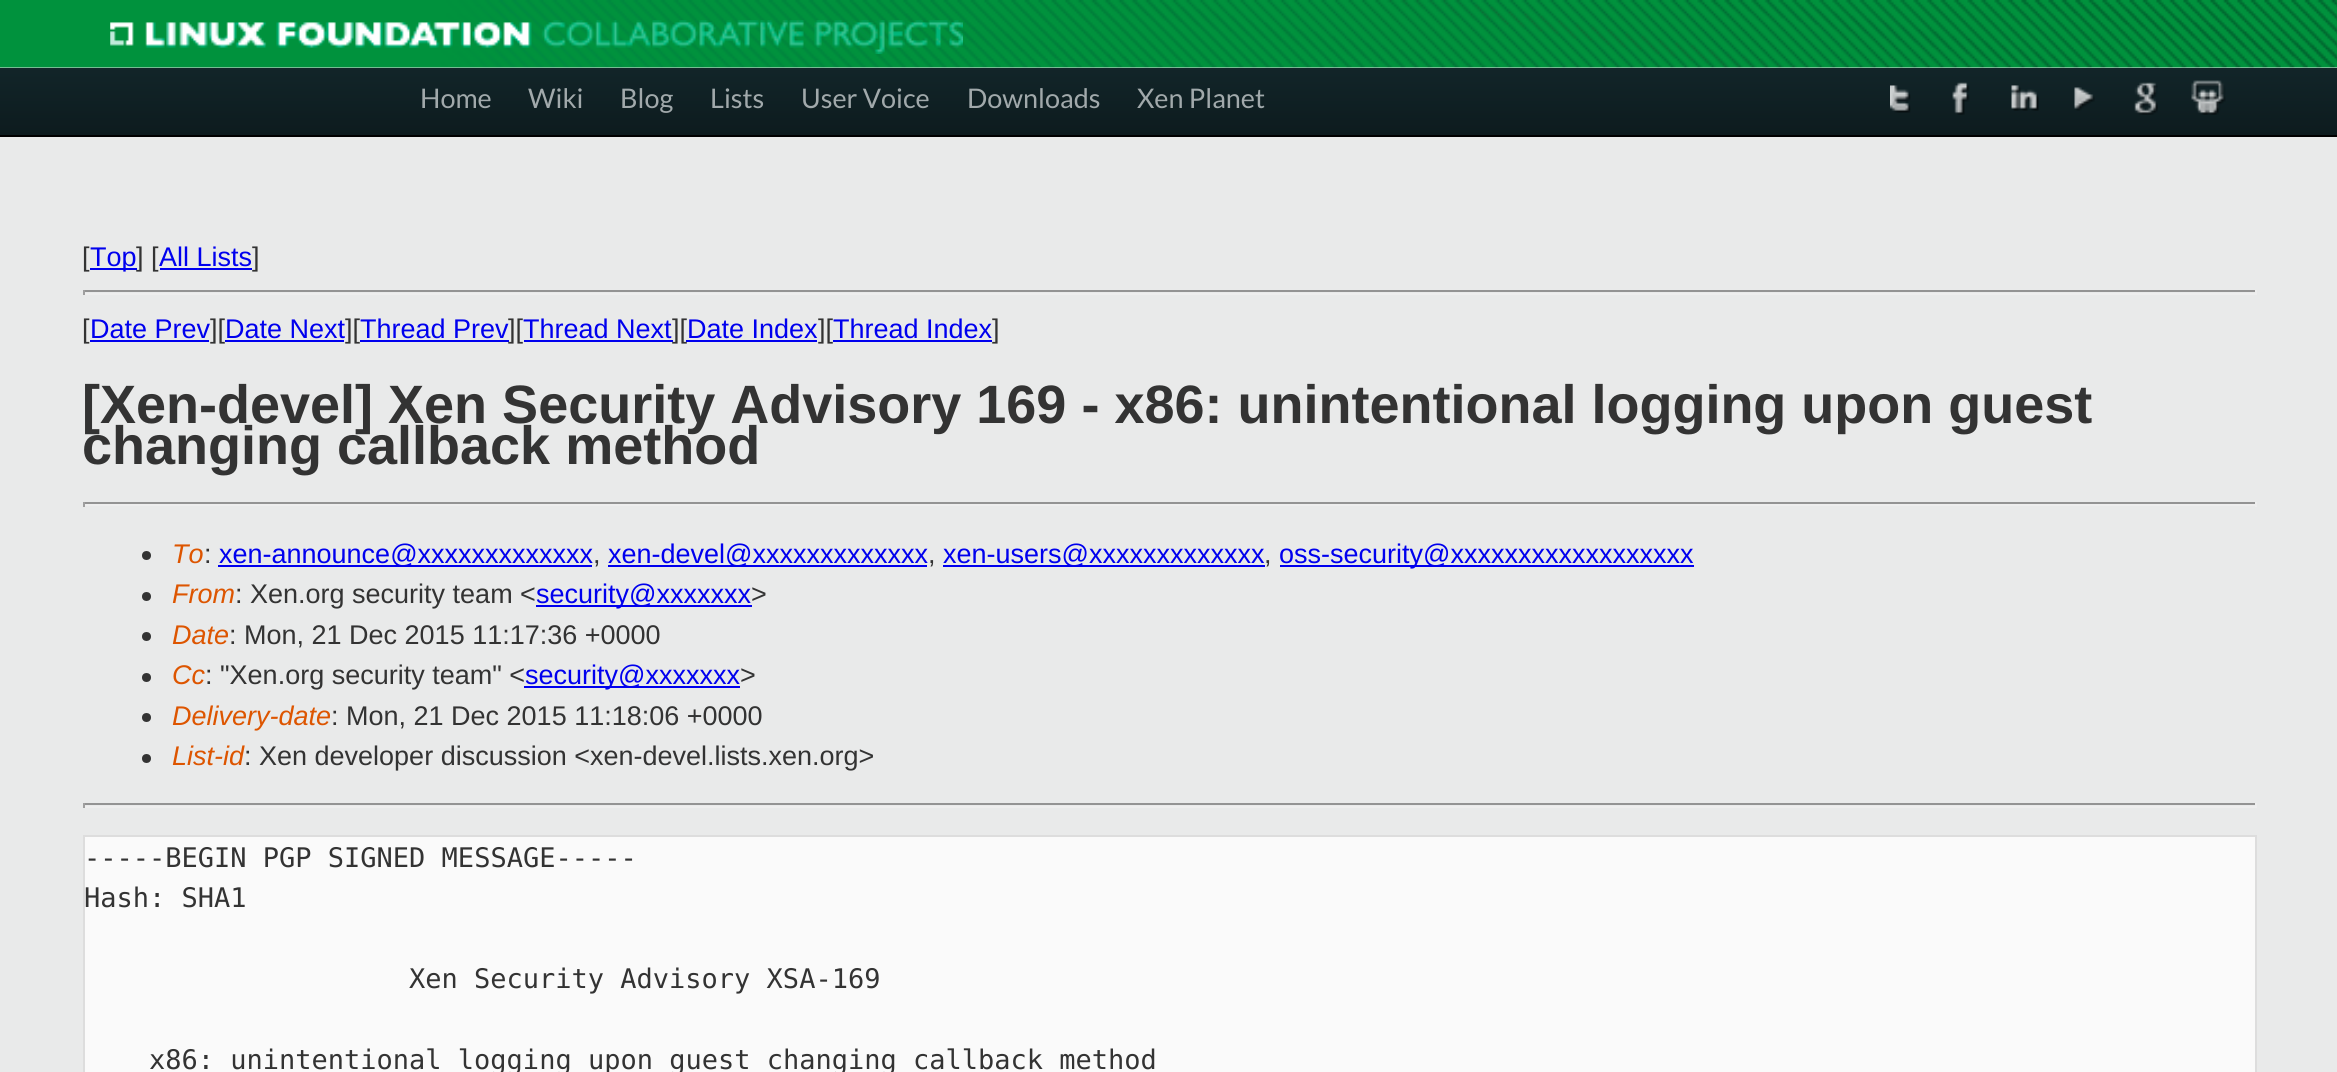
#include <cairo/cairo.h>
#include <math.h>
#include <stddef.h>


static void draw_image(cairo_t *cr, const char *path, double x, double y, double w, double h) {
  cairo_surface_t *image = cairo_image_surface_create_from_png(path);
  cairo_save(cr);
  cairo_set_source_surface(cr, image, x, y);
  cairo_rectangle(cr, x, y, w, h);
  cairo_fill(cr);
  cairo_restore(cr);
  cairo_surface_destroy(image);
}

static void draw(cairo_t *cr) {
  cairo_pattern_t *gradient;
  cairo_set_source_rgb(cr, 233 / 255.0, 234 / 255.0, 234 / 255.0);
  cairo_paint(cr);
  draw_image(cr, "images/1.png", 0, 0, 2337, 68);
  draw_image(cr, "images/2.png", 110, 20, 853, 34);
  gradient = cairo_pattern_create_linear(1169, 67, 1169, 135);
  cairo_pattern_add_color_stop_rgba(gradient, 0, 18 / 255.0, 37 / 255.0, 41 / 255.0, 1);
  cairo_pattern_add_color_stop_rgba(gradient, 1, 13 / 255.0, 27 / 255.0, 30 / 255.0, 1);
  cairo_set_source(cr, gradient);
  cairo_pattern_destroy(gradient);
  cairo_rectangle(cr, 0, 68, 2337, 67);
  cairo_fill(cr);
  cairo_set_source_rgb(cr, 0, 0, 0);
  cairo_rectangle(cr, 0, 135, 2337, 2);
  cairo_fill(cr);
  draw_image(cr, "images/3.png", 1890, 85, 21, 28);
  draw_image(cr, "images/4.png", 1952, 82, 18, 33);
  draw_image(cr, "images/5.png", 2011, 85, 28, 26);
  draw_image(cr, "images/6.png", 2074, 87, 21, 24);
  draw_image(cr, "images/7.png", 2134, 82, 24, 33);
  draw_image(cr, "images/8.png", 2191, 80, 35, 35);
  cairo_set_source_rgb(cr, 0, 0, 238 / 255.0);
  cairo_rectangle(cr, 90, 268, 47, 2);
  cairo_fill(cr);
  cairo_rectangle(cr, 160, 268, 92, 2);
  cairo_fill(cr);
  cairo_set_source_rgb(cr, 147 / 255.0, 147 / 255.0, 147 / 255.0);
  cairo_rectangle(cr, 83, 290, 2174, 2);
  cairo_fill(cr);
  cairo_set_source_rgb(cr, 238 / 255.0, 238 / 255.0, 238 / 255.0);
  cairo_rectangle(cr, 2255, 290, 2, 5);
  cairo_fill(cr);
  cairo_rectangle(cr, 83, 293, 2174, 2);
  cairo_fill(cr);
  cairo_set_source_rgb(cr, 159 / 255.0, 159 / 255.0, 159 / 255.0);
  cairo_rectangle(cr, 83, 290, 2, 5);
  cairo_fill(cr);
  cairo_set_source_rgb(cr, 0, 0, 238 / 255.0);
  cairo_rectangle(cr, 90, 340, 119, 2);
  cairo_fill(cr);
  cairo_rectangle(cr, 225, 340, 119, 2);
  cairo_fill(cr);
  cairo_rectangle(cr, 360, 340, 149, 2);
  cairo_fill(cr);
  cairo_rectangle(cr, 524, 340, 149, 2);
  cairo_fill(cr);
  cairo_rectangle(cr, 833, 340, 159, 2);
  cairo_fill(cr);
  cairo_set_source_rgb(cr, 147 / 255.0, 147 / 255.0, 147 / 255.0);
  cairo_rectangle(cr, 83, 502, 2174, 2);
  cairo_fill(cr);
  cairo_set_source_rgb(cr, 238 / 255.0, 238 / 255.0, 238 / 255.0);
  cairo_rectangle(cr, 2255, 502, 2, 5);
  cairo_fill(cr);
  cairo_rectangle(cr, 83, 504, 2174, 2);
  cairo_fill(cr);
  cairo_set_source_rgb(cr, 159 / 255.0, 159 / 255.0, 159 / 255.0);
  cairo_rectangle(cr, 83, 502, 2, 5);
  cairo_fill(cr);
  cairo_set_source_rgb(cr, 51 / 255.0, 51 / 255.0, 51 / 255.0);
  cairo_arc(cr, 146.5, 555.5, 4.5, 0, 2 * M_PI);
  cairo_fill(cr);
  cairo_set_source_rgb(cr, 0, 0, 238 / 255.0);
  cairo_rectangle(cr, 218, 565, 374, 2);
  cairo_fill(cr);
  cairo_rectangle(cr, 608, 565, 319, 2);
  cairo_fill(cr);
  cairo_rectangle(cr, 943, 565, 322, 2);
  cairo_fill(cr);
  cairo_rectangle(cr, 1280, 565, 414, 2);
  cairo_fill(cr);
  cairo_set_source_rgb(cr, 51 / 255.0, 51 / 255.0, 51 / 255.0);
  cairo_arc(cr, 146.5, 596.5, 4.5, 0, 2 * M_PI);
  cairo_fill(cr);
  cairo_set_source_rgb(cr, 0, 0, 238 / 255.0);
  cairo_rectangle(cr, 536, 605, 216, 2);
  cairo_fill(cr);
  cairo_set_source_rgb(cr, 51 / 255.0, 51 / 255.0, 51 / 255.0);
  cairo_arc(cr, 146.5, 636.5, 4.5, 0, 2 * M_PI);
  cairo_fill(cr);
  cairo_arc(cr, 146.5, 677.5, 4.5, 0, 2 * M_PI);
  cairo_fill(cr);
  cairo_set_source_rgb(cr, 0, 0, 238 / 255.0);
  cairo_rectangle(cr, 524, 686, 216, 2);
  cairo_fill(cr);
  cairo_set_source_rgb(cr, 51 / 255.0, 51 / 255.0, 51 / 255.0);
  cairo_arc(cr, 146.5, 717.5, 4.5, 0, 2 * M_PI);
  cairo_fill(cr);
  cairo_arc(cr, 146.5, 758.5, 4.5, 0, 2 * M_PI);
  cairo_fill(cr);
  cairo_set_source_rgb(cr, 147 / 255.0, 147 / 255.0, 147 / 255.0);
  cairo_rectangle(cr, 83, 803, 2174, 2);
  cairo_fill(cr);
  cairo_set_source_rgb(cr, 238 / 255.0, 238 / 255.0, 238 / 255.0);
  cairo_rectangle(cr, 2255, 803, 2, 5);
  cairo_fill(cr);
  cairo_rectangle(cr, 83, 806, 2174, 2);
  cairo_fill(cr);
  cairo_set_source_rgb(cr, 159 / 255.0, 159 / 255.0, 159 / 255.0);
  cairo_rectangle(cr, 83, 803, 2, 5);
  cairo_fill(cr);
  cairo_set_source_rgb(cr, 250 / 255.0, 250 / 255.0, 250 / 255.0);
  cairo_rectangle(cr, 84, 836, 2172, 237);
  cairo_fill_preserve(cr);
  cairo_set_source_rgb(cr, 221 / 255.0, 221 / 255.0, 221 / 255.0);
  cairo_stroke(cr);
  cairo_select_font_face(cr, "Lato", CAIRO_FONT_SLANT_NORMAL, CAIRO_FONT_WEIGHT_NORMAL);
  cairo_set_font_size(cr, 27);
  cairo_set_source_rgb(cr, 161 / 255.0, 169 / 255.0, 171 / 255.0);
  cairo_move_to(cr, 420, 108);
  cairo_show_text(cr, "Home");
  cairo_move_to(cr, 528, 108);
  cairo_show_text(cr, "Wiki");
  cairo_move_to(cr, 620, 108);
  cairo_show_text(cr, "Blog");
  cairo_move_to(cr, 710, 108);
  cairo_show_text(cr, "Lists");
  cairo_move_to(cr, 801, 108);
  cairo_show_text(cr, "User Voice");
  cairo_move_to(cr, 967, 108);
  cairo_show_text(cr, "Downloads");
  cairo_move_to(cr, 1137, 108);
  cairo_show_text(cr, "Xen Planet");
  cairo_select_font_face(cr, "Liberation Sans", CAIRO_FONT_SLANT_NORMAL, CAIRO_FONT_WEIGHT_NORMAL);
  cairo_set_source_rgb(cr, 51 / 255.0, 51 / 255.0, 51 / 255.0);
  cairo_move_to(cr, 82, 266);
  cairo_show_text(cr, "[");
  cairo_set_source_rgb(cr, 0, 0, 238 / 255.0);
  cairo_move_to(cr, 90, 266);
  cairo_show_text(cr, "Top");
  cairo_set_source_rgb(cr, 51 / 255.0, 51 / 255.0, 51 / 255.0);
  cairo_move_to(cr, 136, 266);
  cairo_show_text(cr, "] [");
  cairo_set_source_rgb(cr, 0, 0, 238 / 255.0);
  cairo_move_to(cr, 159, 266);
  cairo_show_text(cr, "All Lists");
  cairo_set_source_rgb(cr, 51 / 255.0, 51 / 255.0, 51 / 255.0);
  cairo_move_to(cr, 252, 266);
  cairo_show_text(cr, "]");
  cairo_move_to(cr, 82, 338);
  cairo_show_text(cr, "[");
  cairo_set_source_rgb(cr, 0, 0, 238 / 255.0);
  cairo_move_to(cr, 90, 338);
  cairo_show_text(cr, "Date Prev");
  cairo_set_source_rgb(cr, 51 / 255.0, 51 / 255.0, 51 / 255.0);
  cairo_move_to(cr, 210, 338);
  cairo_show_text(cr, "][");
  cairo_set_source_rgb(cr, 0, 0, 238 / 255.0);
  cairo_move_to(cr, 225, 338);
  cairo_show_text(cr, "Date Next");
  cairo_set_source_rgb(cr, 51 / 255.0, 51 / 255.0, 51 / 255.0);
  cairo_move_to(cr, 345, 338);
  cairo_show_text(cr, "][");
  cairo_set_source_rgb(cr, 0, 0, 238 / 255.0);
  cairo_move_to(cr, 360, 338);
  cairo_show_text(cr, "Thread Prev");
  cairo_set_source_rgb(cr, 51 / 255.0, 51 / 255.0, 51 / 255.0);
  cairo_move_to(cr, 508, 338);
  cairo_show_text(cr, "][");
  cairo_set_source_rgb(cr, 0, 0, 238 / 255.0);
  cairo_move_to(cr, 523, 338);
  cairo_show_text(cr, "Thread Next");
  cairo_set_source_rgb(cr, 51 / 255.0, 51 / 255.0, 51 / 255.0);
  cairo_move_to(cr, 672, 338);
  cairo_show_text(cr, "][");
  cairo_set_source_rgb(cr, 0, 0, 238 / 255.0);
  cairo_move_to(cr, 687, 338);
  cairo_show_text(cr, "Date Index");
  cairo_rectangle(cr, 686, 340, 131, 2);
  cairo_fill(cr);
  cairo_set_source_rgb(cr, 51 / 255.0, 51 / 255.0, 51 / 255.0);
  cairo_move_to(cr, 818, 338);
  cairo_show_text(cr, "][");
  cairo_set_source_rgb(cr, 0, 0, 238 / 255.0);
  cairo_move_to(cr, 833, 338);
  cairo_show_text(cr, "Thread Index");
  cairo_set_source_rgb(cr, 51 / 255.0, 51 / 255.0, 51 / 255.0);
  cairo_move_to(cr, 992, 338);
  cairo_show_text(cr, "]");
  cairo_select_font_face(cr, "Liberation Sans", CAIRO_FONT_SLANT_NORMAL, CAIRO_FONT_WEIGHT_BOLD);
  cairo_set_font_size(cr, 54);
  cairo_move_to(cr, 82, 423);
  cairo_show_text(cr, "[Xen-devel] Xen Security Advisory 169 - x86: unintentional logging upon guest");
  cairo_move_to(cr, 82, 464);
  cairo_show_text(cr, "changing callback method");
  cairo_select_font_face(cr, "Liberation Sans", CAIRO_FONT_SLANT_ITALIC, CAIRO_FONT_WEIGHT_NORMAL);
  cairo_set_font_size(cr, 27);
  cairo_set_source_rgb(cr, 221 / 255.0, 85 / 255.0, 0);
  cairo_move_to(cr, 172, 563);
  cairo_show_text(cr, "To");
  cairo_select_font_face(cr, "Liberation Sans", CAIRO_FONT_SLANT_NORMAL, CAIRO_FONT_WEIGHT_NORMAL);
  cairo_set_source_rgb(cr, 51 / 255.0, 51 / 255.0, 51 / 255.0);
  cairo_move_to(cr, 204, 563);
  cairo_show_text(cr, ":");
  cairo_set_source_rgb(cr, 0, 0, 238 / 255.0);
  cairo_move_to(cr, 219, 563);
  cairo_show_text(cr, "xen-announce@xxxxxxxxxxxxx");
  cairo_move_to(cr, 608, 563);
  cairo_show_text(cr, "xen-devel@xxxxxxxxxxxxx");
  cairo_move_to(cr, 943, 563);
  cairo_show_text(cr, "xen-users@xxxxxxxxxxxxx");
  cairo_move_to(cr, 1279, 563);
  cairo_show_text(cr, "oss-security@xxxxxxxxxxxxxxxxxx");
  cairo_set_source_rgb(cr, 51 / 255.0, 51 / 255.0, 51 / 255.0);
  cairo_move_to(cr, 593, 563);
  cairo_show_text(cr, ",");
  cairo_move_to(cr, 928, 563);
  cairo_show_text(cr, ",");
  cairo_move_to(cr, 1264, 563);
  cairo_show_text(cr, ",");
  cairo_select_font_face(cr, "Liberation Sans", CAIRO_FONT_SLANT_ITALIC, CAIRO_FONT_WEIGHT_NORMAL);
  cairo_set_source_rgb(cr, 221 / 255.0, 85 / 255.0, 0);
  cairo_move_to(cr, 172, 603);
  cairo_show_text(cr, "From");
  cairo_select_font_face(cr, "Liberation Sans", CAIRO_FONT_SLANT_NORMAL, CAIRO_FONT_WEIGHT_NORMAL);
  cairo_set_source_rgb(cr, 51 / 255.0, 51 / 255.0, 51 / 255.0);
  cairo_move_to(cr, 235, 603);
  cairo_show_text(cr, ": Xen.org security team <");
  cairo_set_source_rgb(cr, 0, 0, 238 / 255.0);
  cairo_move_to(cr, 536, 603);
  cairo_show_text(cr, "security@xxxxxxx");
  cairo_set_source_rgb(cr, 51 / 255.0, 51 / 255.0, 51 / 255.0);
  cairo_move_to(cr, 751, 603);
  cairo_show_text(cr, ">");
  cairo_select_font_face(cr, "Liberation Sans", CAIRO_FONT_SLANT_ITALIC, CAIRO_FONT_WEIGHT_NORMAL);
  cairo_set_source_rgb(cr, 221 / 255.0, 85 / 255.0, 0);
  cairo_move_to(cr, 172, 644);
  cairo_show_text(cr, "Date");
  cairo_select_font_face(cr, "Liberation Sans", CAIRO_FONT_SLANT_NORMAL, CAIRO_FONT_WEIGHT_NORMAL);
  cairo_set_source_rgb(cr, 51 / 255.0, 51 / 255.0, 51 / 255.0);
  cairo_move_to(cr, 229, 644);
  cairo_show_text(cr, ": Mon, 21 Dec 2015 11:17:36 +0000");
  cairo_select_font_face(cr, "Liberation Sans", CAIRO_FONT_SLANT_ITALIC, CAIRO_FONT_WEIGHT_NORMAL);
  cairo_set_source_rgb(cr, 221 / 255.0, 85 / 255.0, 0);
  cairo_move_to(cr, 172, 684);
  cairo_show_text(cr, "Cc");
  cairo_select_font_face(cr, "Liberation Sans", CAIRO_FONT_SLANT_NORMAL, CAIRO_FONT_WEIGHT_NORMAL);
  cairo_set_source_rgb(cr, 51 / 255.0, 51 / 255.0, 51 / 255.0);
  cairo_move_to(cr, 205, 684);
  cairo_show_text(cr, ": \"Xen.org security team\" <");
  cairo_set_source_rgb(cr, 0, 0, 238 / 255.0);
  cairo_move_to(cr, 525, 684);
  cairo_show_text(cr, "security@xxxxxxx");
  cairo_set_source_rgb(cr, 51 / 255.0, 51 / 255.0, 51 / 255.0);
  cairo_move_to(cr, 740, 684);
  cairo_show_text(cr, ">");
  cairo_select_font_face(cr, "Liberation Sans", CAIRO_FONT_SLANT_ITALIC, CAIRO_FONT_WEIGHT_NORMAL);
  cairo_set_source_rgb(cr, 221 / 255.0, 85 / 255.0, 0);
  cairo_move_to(cr, 172, 725);
  cairo_show_text(cr, "Delivery-date");
  cairo_select_font_face(cr, "Liberation Sans", CAIRO_FONT_SLANT_NORMAL, CAIRO_FONT_WEIGHT_NORMAL);
  cairo_set_source_rgb(cr, 51 / 255.0, 51 / 255.0, 51 / 255.0);
  cairo_move_to(cr, 331, 725);
  cairo_show_text(cr, ": Mon, 21 Dec 2015 11:18:06 +0000");
  cairo_select_font_face(cr, "Liberation Sans", CAIRO_FONT_SLANT_ITALIC, CAIRO_FONT_WEIGHT_NORMAL);
  cairo_set_source_rgb(cr, 221 / 255.0, 85 / 255.0, 0);
  cairo_move_to(cr, 172, 765);
  cairo_show_text(cr, "List-id");
  cairo_select_font_face(cr, "Liberation Sans", CAIRO_FONT_SLANT_NORMAL, CAIRO_FONT_WEIGHT_NORMAL);
  cairo_set_source_rgb(cr, 51 / 255.0, 51 / 255.0, 51 / 255.0);
  cairo_move_to(cr, 244, 765);
  cairo_show_text(cr, ": Xen developer discussion <xen-devel.lists.xen.org>");
  cairo_select_font_face(cr, "DejaVu Sans Mono", CAIRO_FONT_SLANT_NORMAL, CAIRO_FONT_WEIGHT_NORMAL);
  cairo_move_to(cr, 84, 867);
  cairo_show_text(cr, "-----BEGIN PGP SIGNED MESSAGE-----");
  cairo_move_to(cr, 84, 907);
  cairo_show_text(cr, "Hash: SHA1");
  cairo_move_to(cr, 409, 988);
  cairo_show_text(cr, "Xen Security Advisory XSA-169");
  cairo_move_to(cr, 149, 1069);
  cairo_show_text(cr, "x86: unintentional logging upon guest changing callback method");
}

int main(void) {
  cairo_surface_t *surface = cairo_image_surface_create(CAIRO_FORMAT_RGB24, 2337, 1072);
  cairo_t *cr = cairo_create(surface);
  cairo_font_options_t *options = cairo_font_options_create();
  cairo_font_options_set_hint_metrics(options, CAIRO_HINT_METRICS_OFF);
  cairo_font_options_set_hint_style(options, CAIRO_HINT_STYLE_NONE);
  cairo_set_font_options(cr, options);
  cairo_set_miter_limit(cr, 4);
  draw(cr);
  cairo_surface_write_to_png(surface, "out.png");
  cairo_font_options_destroy(options);
  cairo_destroy(cr);
  cairo_surface_destroy(surface);
  return 0;
}
